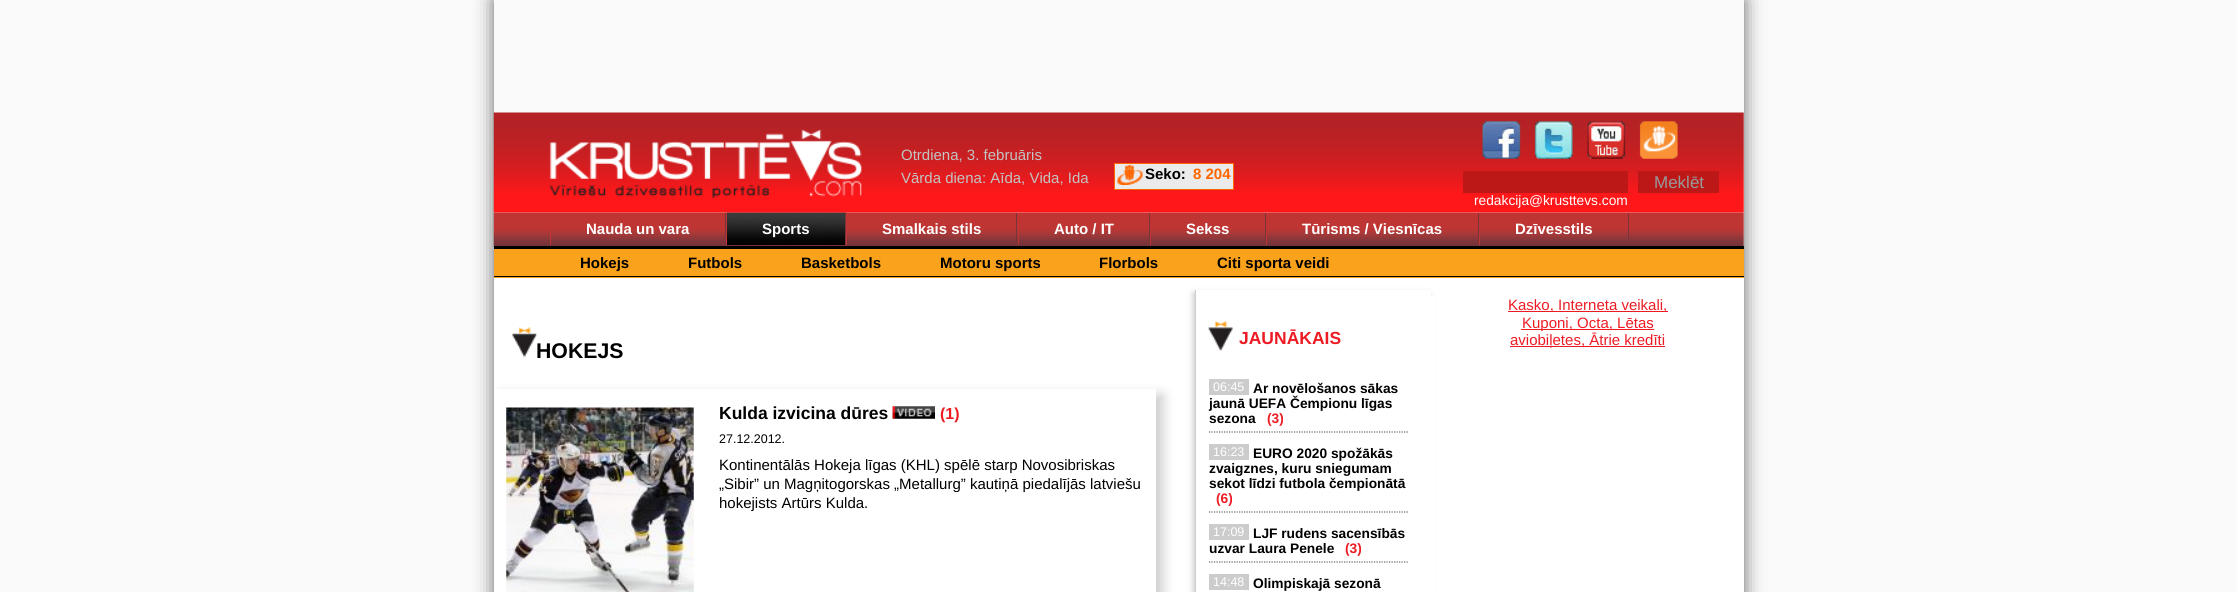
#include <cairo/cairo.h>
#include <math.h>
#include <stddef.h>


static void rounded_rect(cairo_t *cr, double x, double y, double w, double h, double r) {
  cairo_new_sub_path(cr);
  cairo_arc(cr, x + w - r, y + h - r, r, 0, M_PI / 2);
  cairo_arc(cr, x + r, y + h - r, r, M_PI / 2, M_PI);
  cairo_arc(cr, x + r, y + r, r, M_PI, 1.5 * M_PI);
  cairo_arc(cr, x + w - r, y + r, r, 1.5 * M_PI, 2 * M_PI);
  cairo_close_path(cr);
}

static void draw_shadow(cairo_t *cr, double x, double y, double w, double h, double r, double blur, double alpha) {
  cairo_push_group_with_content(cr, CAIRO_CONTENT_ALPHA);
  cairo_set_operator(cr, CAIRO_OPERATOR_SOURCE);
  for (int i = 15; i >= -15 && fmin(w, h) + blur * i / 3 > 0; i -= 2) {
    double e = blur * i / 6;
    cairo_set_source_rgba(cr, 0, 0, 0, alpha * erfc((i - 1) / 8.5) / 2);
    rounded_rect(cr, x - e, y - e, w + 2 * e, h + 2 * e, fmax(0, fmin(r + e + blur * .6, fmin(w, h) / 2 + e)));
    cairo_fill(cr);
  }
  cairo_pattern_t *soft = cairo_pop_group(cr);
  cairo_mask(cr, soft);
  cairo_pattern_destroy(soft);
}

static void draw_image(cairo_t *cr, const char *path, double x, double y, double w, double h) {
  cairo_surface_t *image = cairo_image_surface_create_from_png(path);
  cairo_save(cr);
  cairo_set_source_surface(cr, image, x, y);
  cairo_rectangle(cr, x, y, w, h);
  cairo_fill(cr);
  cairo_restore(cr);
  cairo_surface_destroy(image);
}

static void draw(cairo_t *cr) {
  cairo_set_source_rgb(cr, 250 / 255.0, 250 / 255.0, 250 / 255.0);
  cairo_paint(cr);
  cairo_set_source_rgb(cr, 102 / 255.0, 102 / 255.0, 102 / 255.0);
  draw_shadow(cr, 494, 0, 1250, 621, 0, 9.5, 1);
  cairo_set_source_rgb(cr, 1, 1, 1);
  cairo_rectangle(cr, 494, 113, 1250, 479);
  cairo_fill(cr);
  cairo_set_source_rgb(cr, 250 / 255.0, 250 / 255.0, 250 / 255.0);
  cairo_rectangle(cr, 494, 0, 1250, 113);
  cairo_fill(cr);
  draw_image(cr, "images/8.png", 493, 212, 1251, 35);
  draw_image(cr, "images/9.png", 726, 212, 121, 33);
  draw_image(cr, "images/1.png", 493, 112, 1251, 101);
  draw_image(cr, "images/2.png", 549, 129, 313, 69);
  cairo_set_source_rgb(cr, 235 / 255.0, 235 / 255.0, 236 / 255.0);
  cairo_rectangle(cr, 1114.5, 163.5, 119, 26);
  cairo_fill_preserve(cr);
  cairo_set_source_rgb(cr, 1, 102 / 255.0, 0);
  cairo_set_line_width(cr, 1);
  cairo_stroke(cr);
  draw_image(cr, "images/3.png", 1117, 165, 26, 20);
  draw_image(cr, "images/4.png", 1482, 121, 39, 38);
  draw_image(cr, "images/5.png", 1534, 121, 39, 38);
  draw_image(cr, "images/6.png", 1587, 121, 39, 38);
  draw_image(cr, "images/7.png", 1639, 121, 39, 38);
  cairo_set_source_rgb(cr, 188 / 255.0, 24 / 255.0, 24 / 255.0);
  cairo_rectangle(cr, 1463, 171, 165, 22);
  cairo_fill(cr);
  cairo_rectangle(cr, 1638, 171, 81, 22);
  cairo_fill(cr);
  cairo_set_source_rgb(cr, 123 / 255.0, 52 / 255.0, 58 / 255.0);
  cairo_rectangle(cr, 725, 213, 1, 32);
  cairo_fill(cr);
  cairo_set_source_rgb(cr, 190 / 255.0, 53 / 255.0, 51 / 255.0);
  cairo_rectangle(cr, 550, 229, 1, 16);
  cairo_fill(cr);
  cairo_set_source_rgb(cr, 123 / 255.0, 52 / 255.0, 58 / 255.0);
  cairo_rectangle(cr, 845, 213, 1, 32);
  cairo_fill(cr);
  cairo_set_source_rgb(cr, 190 / 255.0, 53 / 255.0, 51 / 255.0);
  cairo_rectangle(cr, 726, 213, 1, 32);
  cairo_fill(cr);
  cairo_set_source_rgb(cr, 123 / 255.0, 52 / 255.0, 58 / 255.0);
  cairo_rectangle(cr, 1016, 213, 1, 32);
  cairo_fill(cr);
  cairo_set_source_rgb(cr, 190 / 255.0, 53 / 255.0, 51 / 255.0);
  cairo_rectangle(cr, 846, 213, 1, 32);
  cairo_fill(cr);
  cairo_set_source_rgb(cr, 123 / 255.0, 52 / 255.0, 58 / 255.0);
  cairo_rectangle(cr, 1149, 213, 1, 32);
  cairo_fill(cr);
  cairo_set_source_rgb(cr, 190 / 255.0, 53 / 255.0, 51 / 255.0);
  cairo_rectangle(cr, 1018, 229, 1, 16);
  cairo_fill(cr);
  cairo_set_source_rgb(cr, 123 / 255.0, 52 / 255.0, 58 / 255.0);
  cairo_rectangle(cr, 1265, 213, 1, 32);
  cairo_fill(cr);
  cairo_set_source_rgb(cr, 190 / 255.0, 53 / 255.0, 51 / 255.0);
  cairo_rectangle(cr, 1150, 229, 1, 16);
  cairo_fill(cr);
  cairo_set_source_rgb(cr, 123 / 255.0, 52 / 255.0, 58 / 255.0);
  cairo_rectangle(cr, 1478, 213, 1, 32);
  cairo_fill(cr);
  cairo_set_source_rgb(cr, 190 / 255.0, 53 / 255.0, 51 / 255.0);
  cairo_rectangle(cr, 1266, 229, 1, 16);
  cairo_fill(cr);
  cairo_set_source_rgb(cr, 123 / 255.0, 52 / 255.0, 58 / 255.0);
  cairo_rectangle(cr, 1628, 213, 1, 32);
  cairo_fill(cr);
  cairo_set_source_rgb(cr, 190 / 255.0, 53 / 255.0, 51 / 255.0);
  cairo_rectangle(cr, 1479, 229, 1, 16);
  cairo_fill(cr);
  cairo_set_source_rgb(cr, 250 / 255.0, 162 / 255.0, 27 / 255.0);
  cairo_rectangle(cr, 494, 249, 1250, 29);
  cairo_fill(cr);
  cairo_set_source_rgb(cr, 0, 0, 0);
  cairo_rectangle(cr, 494, 246, 1250, 3);
  cairo_fill(cr);
  cairo_rectangle(cr, 494, 276, 1250, 1);
  cairo_fill(cr);
  draw_image(cr, "images/10.png", 512, 327, 25, 31);
  cairo_save(cr);
  cairo_set_fill_rule(cr, CAIRO_FILL_RULE_EVEN_ODD);
  cairo_new_path(cr);
  cairo_move_to(cr, 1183, 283);
  cairo_line_to(cr, 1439, 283);
  cairo_line_to(cr, 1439, 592);
  cairo_line_to(cr, 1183, 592);
  cairo_close_path(cr);
  cairo_move_to(cr, 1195, 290);
  cairo_line_to(cr, 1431, 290);
  cairo_line_to(cr, 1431, 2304);
  cairo_line_to(cr, 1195, 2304);
  cairo_close_path(cr);
  cairo_clip(cr);
  cairo_set_source_rgb(cr, 204 / 255.0, 204 / 255.0, 204 / 255.0);
  draw_shadow(cr, 1193, 293, 236, 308, 0, 3, 1);
  cairo_restore(cr);
  cairo_set_source_rgb(cr, 1, 1, 1);
  cairo_rectangle(cr, 1431, 296, 3, 296);
  cairo_fill(cr);
  cairo_set_source_rgb(cr, 237 / 255.0, 28 / 255.0, 36 / 255.0);
  cairo_rectangle(cr, 1508, 311, 160, 1);
  cairo_fill(cr);
  cairo_rectangle(cr, 1521, 329, 133, 1);
  cairo_fill(cr);
  cairo_rectangle(cr, 1510, 346, 155, 1);
  cairo_fill(cr);
  cairo_set_source_rgb(cr, 204 / 255.0, 204 / 255.0, 204 / 255.0);
  cairo_rectangle(cr, 1195, 290, 1, 302);
  cairo_fill(cr);
  draw_image(cr, "images/11.png", 1208, 321, 25, 30);
  cairo_new_path(cr);
  cairo_move_to(cr, 1209, 432);
  cairo_line_to(cr, 1409, 432);
  cairo_set_source_rgb(cr, 102 / 255.0, 102 / 255.0, 102 / 255.0);
  cairo_set_line_width(cr, 1.2);
  cairo_set_dash(cr, (double[]){1.25, 1.25}, 2, 0);
  cairo_stroke(cr);
  cairo_set_source_rgb(cr, 204 / 255.0, 204 / 255.0, 204 / 255.0);
  cairo_rectangle(cr, 1209, 379, 40, 16);
  cairo_fill(cr);
  cairo_new_path(cr);
  cairo_move_to(cr, 1209, 512);
  cairo_line_to(cr, 1409, 512);
  cairo_set_source_rgb(cr, 102 / 255.0, 102 / 255.0, 102 / 255.0);
  cairo_stroke(cr);
  cairo_set_source_rgb(cr, 204 / 255.0, 204 / 255.0, 204 / 255.0);
  cairo_rectangle(cr, 1209, 444, 40, 16);
  cairo_fill(cr);
  cairo_new_path(cr);
  cairo_move_to(cr, 1209, 562);
  cairo_line_to(cr, 1409, 562);
  cairo_set_source_rgb(cr, 102 / 255.0, 102 / 255.0, 102 / 255.0);
  cairo_stroke(cr);
  cairo_set_source_rgb(cr, 204 / 255.0, 204 / 255.0, 204 / 255.0);
  cairo_rectangle(cr, 1209, 524, 40, 16);
  cairo_fill(cr);
  cairo_rectangle(cr, 1209, 574, 40, 16);
  cairo_fill(cr);
  cairo_save(cr);
  cairo_rectangle(cr, 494, 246, 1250, 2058);
  cairo_clip(cr);
  cairo_set_fill_rule(cr, CAIRO_FILL_RULE_EVEN_ODD);
  cairo_new_path(cr);
  cairo_move_to(cr, 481, 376);
  cairo_line_to(cr, 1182, 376);
  cairo_line_to(cr, 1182, 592);
  cairo_line_to(cr, 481, 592);
  cairo_close_path(cr);
  cairo_move_to(cr, 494, 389);
  cairo_line_to(cr, 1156, 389);
  cairo_line_to(cr, 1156, 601);
  cairo_line_to(cr, 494, 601);
  cairo_close_path(cr);
  cairo_clip(cr);
  cairo_set_source_rgb(cr, 204 / 255.0, 204 / 255.0, 204 / 255.0);
  draw_shadow(cr, 500, 395, 663, 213, 0, 6, 1);
  cairo_restore(cr);
  draw_image(cr, "images/12.png", 506, 407, 188, 185);
  draw_image(cr, "images/13.png", 892, 406, 43, 13);
  cairo_select_font_face(cr, "Liberation Sans", CAIRO_FONT_SLANT_NORMAL, CAIRO_FONT_WEIGHT_NORMAL);
  cairo_set_font_size(cr, 15);
  cairo_set_source_rgb(cr, 195 / 255.0, 195 / 255.0, 194 / 255.0);
  cairo_move_to(cr, 901, 160);
  cairo_show_text(cr, "Otrdiena, 3. februāris");
  cairo_move_to(cr, 901, 183);
  cairo_show_text(cr, "Vārda diena: Aīda, Vida, Ida");
  cairo_select_font_face(cr, "Liberation Sans", CAIRO_FONT_SLANT_NORMAL, CAIRO_FONT_WEIGHT_BOLD);
  cairo_set_source_rgb(cr, 0, 0, 0);
  cairo_move_to(cr, 1145, 179);
  cairo_show_text(cr, "Seko:");
  cairo_set_source_rgb(cr, 1, 102 / 255.0, 0);
  cairo_move_to(cr, 1193, 179);
  cairo_show_text(cr, "8 204");
  cairo_select_font_face(cr, "Liberation Sans", CAIRO_FONT_SLANT_NORMAL, CAIRO_FONT_WEIGHT_NORMAL);
  cairo_set_font_size(cr, 17);
  cairo_set_source_rgb(cr, 153 / 255.0, 153 / 255.0, 153 / 255.0);
  cairo_move_to(cr, 1654, 188);
  cairo_show_text(cr, "Meklēt");
  cairo_set_font_size(cr, 13.75);
  cairo_set_source_rgb(cr, 1, 1, 1);
  cairo_move_to(cr, 1474, 205);
  cairo_show_text(cr, "redakcija@krusttevs.com");
  cairo_select_font_face(cr, "Liberation Sans", CAIRO_FONT_SLANT_NORMAL, CAIRO_FONT_WEIGHT_BOLD);
  cairo_set_font_size(cr, 15);
  cairo_move_to(cr, 586, 234);
  cairo_show_text(cr, "Nauda un vara");
  cairo_move_to(cr, 762, 234);
  cairo_show_text(cr, "Sports");
  cairo_move_to(cr, 882, 234);
  cairo_show_text(cr, "Smalkais stils");
  cairo_move_to(cr, 1054, 234);
  cairo_show_text(cr, "Auto / IT");
  cairo_move_to(cr, 1186, 234);
  cairo_show_text(cr, "Sekss");
  cairo_move_to(cr, 1302, 234);
  cairo_show_text(cr, "Tūrisms / Viesnīcas");
  cairo_move_to(cr, 1515, 234);
  cairo_show_text(cr, "Dzīvesstils");
  cairo_set_source_rgb(cr, 0, 0, 0);
  cairo_move_to(cr, 580, 268);
  cairo_show_text(cr, "Hokejs");
  cairo_move_to(cr, 688, 268);
  cairo_show_text(cr, "Futbols");
  cairo_move_to(cr, 801, 268);
  cairo_show_text(cr, "Basketbols");
  cairo_move_to(cr, 940, 268);
  cairo_show_text(cr, "Motoru sports");
  cairo_move_to(cr, 1099, 268);
  cairo_show_text(cr, "Florbols");
  cairo_move_to(cr, 1217, 268);
  cairo_show_text(cr, "Citi sporta veidi");
  cairo_set_font_size(cr, 21.25);
  cairo_move_to(cr, 536, 358);
  cairo_show_text(cr, "HOKEJS");
  cairo_select_font_face(cr, "Liberation Sans", CAIRO_FONT_SLANT_NORMAL, CAIRO_FONT_WEIGHT_NORMAL);
  cairo_set_font_size(cr, 15);
  cairo_set_source_rgb(cr, 237 / 255.0, 28 / 255.0, 36 / 255.0);
  cairo_move_to(cr, 1508, 310);
  cairo_show_text(cr, "Kasko, Interneta veikali,");
  cairo_move_to(cr, 1522, 328);
  cairo_show_text(cr, "Kuponi, Octa, Lētas");
  cairo_move_to(cr, 1510, 345);
  cairo_show_text(cr, "aviobiļetes, Ātrie kredīti");
  cairo_select_font_face(cr, "Liberation Sans", CAIRO_FONT_SLANT_NORMAL, CAIRO_FONT_WEIGHT_BOLD);
  cairo_set_font_size(cr, 17.5);
  cairo_move_to(cr, 1239, 344);
  cairo_show_text(cr, "JAUNĀKAIS");
  cairo_set_font_size(cr, 13.75);
  cairo_set_source_rgb(cr, 0, 0, 0);
  cairo_move_to(cr, 1253, 393);
  cairo_show_text(cr, "Ar novēlošanos sākas");
  cairo_move_to(cr, 1209, 408);
  cairo_show_text(cr, "jaunā UEFA Čempionu līgas");
  cairo_move_to(cr, 1209, 423);
  cairo_show_text(cr, "sezona");
  cairo_set_source_rgb(cr, 237 / 255.0, 28 / 255.0, 36 / 255.0);
  cairo_move_to(cr, 1267, 423);
  cairo_show_text(cr, "(3)");
  cairo_select_font_face(cr, "Liberation Sans", CAIRO_FONT_SLANT_NORMAL, CAIRO_FONT_WEIGHT_NORMAL);
  cairo_set_font_size(cr, 12.5);
  cairo_set_source_rgb(cr, 1, 1, 1);
  cairo_move_to(cr, 1213, 391);
  cairo_show_text(cr, "06:45");
  cairo_select_font_face(cr, "Liberation Sans", CAIRO_FONT_SLANT_NORMAL, CAIRO_FONT_WEIGHT_BOLD);
  cairo_set_font_size(cr, 13.75);
  cairo_set_source_rgb(cr, 0, 0, 0);
  cairo_move_to(cr, 1253, 458);
  cairo_show_text(cr, "EURO 2020 spožākās");
  cairo_move_to(cr, 1209, 473);
  cairo_show_text(cr, "zvaigznes, kuru sniegumam");
  cairo_move_to(cr, 1209, 488);
  cairo_show_text(cr, "sekot līdzi futbola čempionātā");
  cairo_set_source_rgb(cr, 237 / 255.0, 28 / 255.0, 36 / 255.0);
  cairo_move_to(cr, 1216, 503);
  cairo_show_text(cr, "(6)");
  cairo_select_font_face(cr, "Liberation Sans", CAIRO_FONT_SLANT_NORMAL, CAIRO_FONT_WEIGHT_NORMAL);
  cairo_set_font_size(cr, 12.5);
  cairo_set_source_rgb(cr, 1, 1, 1);
  cairo_move_to(cr, 1213, 456);
  cairo_show_text(cr, "16:23");
  cairo_move_to(cr, 1213, 536);
  cairo_show_text(cr, "17:09");
  cairo_select_font_face(cr, "Liberation Sans", CAIRO_FONT_SLANT_NORMAL, CAIRO_FONT_WEIGHT_BOLD);
  cairo_set_font_size(cr, 13.75);
  cairo_set_source_rgb(cr, 0, 0, 0);
  cairo_move_to(cr, 1253, 538);
  cairo_show_text(cr, "LJF rudens sacensībās");
  cairo_move_to(cr, 1209, 553);
  cairo_show_text(cr, "uzvar Laura Penele");
  cairo_set_source_rgb(cr, 237 / 255.0, 28 / 255.0, 36 / 255.0);
  cairo_move_to(cr, 1345, 553);
  cairo_show_text(cr, "(3)");
  cairo_select_font_face(cr, "Liberation Sans", CAIRO_FONT_SLANT_NORMAL, CAIRO_FONT_WEIGHT_NORMAL);
  cairo_set_font_size(cr, 12.5);
  cairo_set_source_rgb(cr, 1, 1, 1);
  cairo_move_to(cr, 1213, 586);
  cairo_show_text(cr, "14:48");
  cairo_select_font_face(cr, "Liberation Sans", CAIRO_FONT_SLANT_NORMAL, CAIRO_FONT_WEIGHT_BOLD);
  cairo_set_font_size(cr, 13.75);
  cairo_set_source_rgb(cr, 0, 0, 0);
  cairo_move_to(cr, 1253, 588);
  cairo_show_text(cr, "Olimpiskajā sezonā");
  cairo_set_font_size(cr, 17.5);
  cairo_move_to(cr, 719, 419);
  cairo_show_text(cr, "Kulda izvicina dūres");
  cairo_set_font_size(cr, 16);
  cairo_set_source_rgb(cr, 237 / 255.0, 28 / 255.0, 36 / 255.0);
  cairo_move_to(cr, 940, 419);
  cairo_show_text(cr, "(1)");
  cairo_select_font_face(cr, "Liberation Sans", CAIRO_FONT_SLANT_NORMAL, CAIRO_FONT_WEIGHT_NORMAL);
  cairo_set_font_size(cr, 12.5);
  cairo_set_source_rgb(cr, 0, 0, 0);
  cairo_move_to(cr, 719, 443);
  cairo_show_text(cr, "27.12.2012.");
  cairo_set_font_size(cr, 15);
  cairo_move_to(cr, 719, 470);
  cairo_show_text(cr, "Kontinentālās Hokeja līgas (KHL) spēlē starp Novosibriskas");
  cairo_move_to(cr, 719, 489);
  cairo_show_text(cr, "„Sibir” un Magņitogorskas „Metallurg” kautiņā piedalījās latviešu");
  cairo_move_to(cr, 719, 508);
  cairo_show_text(cr, "hokejists Artūrs Kulda.");
}

int main(void) {
  cairo_surface_t *surface = cairo_image_surface_create(CAIRO_FORMAT_RGB24, 2237, 592);
  cairo_t *cr = cairo_create(surface);
  cairo_font_options_t *options = cairo_font_options_create();
  cairo_font_options_set_hint_metrics(options, CAIRO_HINT_METRICS_OFF);
  cairo_font_options_set_hint_style(options, CAIRO_HINT_STYLE_NONE);
  cairo_set_font_options(cr, options);
  cairo_set_miter_limit(cr, 4);
  draw(cr);
  cairo_surface_write_to_png(surface, "out.png");
  cairo_font_options_destroy(options);
  cairo_destroy(cr);
  cairo_surface_destroy(surface);
  return 0;
}
